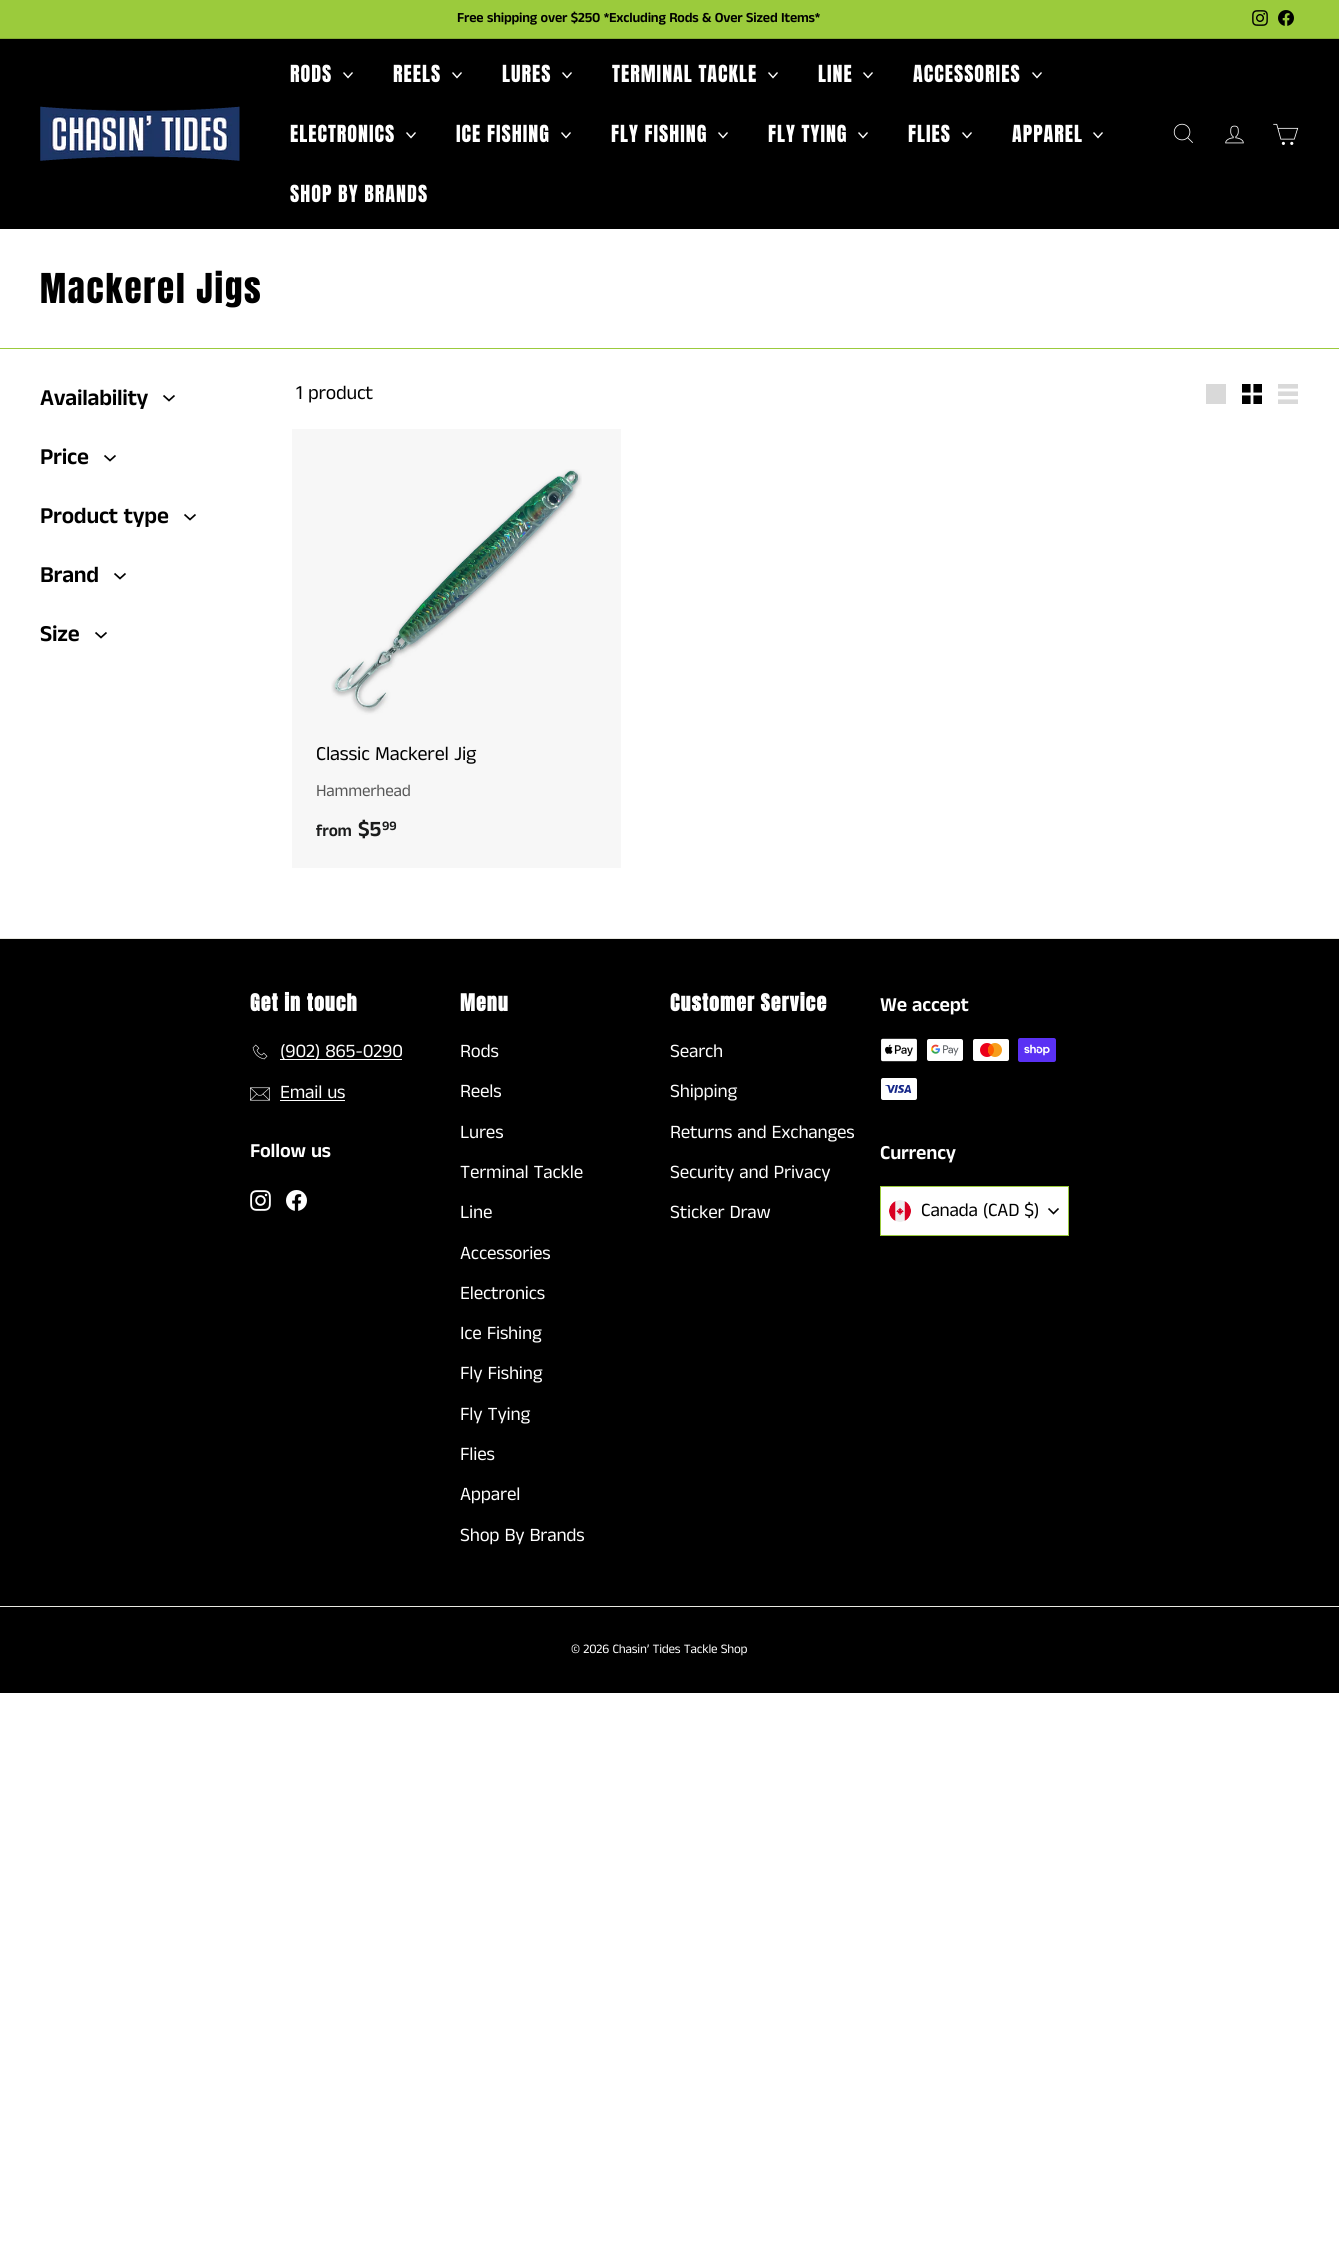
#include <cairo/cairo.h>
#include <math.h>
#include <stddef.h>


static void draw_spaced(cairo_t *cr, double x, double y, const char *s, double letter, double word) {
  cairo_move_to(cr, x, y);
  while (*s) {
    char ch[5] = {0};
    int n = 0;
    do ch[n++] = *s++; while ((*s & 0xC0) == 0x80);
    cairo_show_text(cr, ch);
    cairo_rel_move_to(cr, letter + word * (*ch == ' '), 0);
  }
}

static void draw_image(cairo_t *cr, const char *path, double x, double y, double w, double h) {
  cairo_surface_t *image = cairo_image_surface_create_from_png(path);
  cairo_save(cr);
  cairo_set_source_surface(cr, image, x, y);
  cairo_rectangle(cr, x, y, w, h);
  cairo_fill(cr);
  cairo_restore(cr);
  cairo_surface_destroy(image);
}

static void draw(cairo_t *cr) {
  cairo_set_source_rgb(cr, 1, 1, 1);
  cairo_paint(cr);
  cairo_set_source_rgb(cr, 247 / 255.0, 247 / 255.0, 247 / 255.0);
  cairo_rectangle(cr, 292, 429, 329, 439);
  cairo_fill(cr);
  cairo_set_source_rgb(cr, 155 / 255.0, 203 / 255.0, 60 / 255.0);
  cairo_rectangle(cr, 0, 0, 1339, 38);
  cairo_fill(cr);
  draw_image(cr, "images/1.png", 1252, 10, 16, 16);
  draw_image(cr, "images/2.png", 1278, 10, 16, 16);
  cairo_set_source_rgb(cr, 132 / 255.0, 173 / 255.0, 51 / 255.0);
  cairo_rectangle(cr, 0, 38, 1339, 1);
  cairo_fill(cr);
  cairo_set_source_rgb(cr, 0, 0, 0);
  cairo_rectangle(cr, 0, 39, 1339, 190);
  cairo_fill(cr);
  draw_image(cr, "images/3.png", 40, 106, 200, 55);
  cairo_new_path(cr);
  cairo_move_to(cr, 343.5, 72.5);
  cairo_line_to(cr, 348, 77.5);
  cairo_line_to(cr, 352.5, 72.5);
  cairo_set_source_rgb(cr, 1, 1, 1);
  cairo_set_line_width(cr, 1.4);
  cairo_stroke(cr);
  cairo_new_path(cr);
  cairo_move_to(cr, 452.5, 72.5);
  cairo_line_to(cr, 457, 77.5);
  cairo_line_to(cr, 461.5, 72.5);
  cairo_stroke(cr);
  cairo_new_path(cr);
  cairo_move_to(cr, 562.5, 72.5);
  cairo_line_to(cr, 567, 77.5);
  cairo_line_to(cr, 571.5, 72.5);
  cairo_stroke(cr);
  cairo_new_path(cr);
  cairo_move_to(cr, 768.5, 72.5);
  cairo_line_to(cr, 773, 77.5);
  cairo_line_to(cr, 777.5, 72.5);
  cairo_stroke(cr);
  cairo_new_path(cr);
  cairo_move_to(cr, 863.5, 72.5);
  cairo_line_to(cr, 868, 77.5);
  cairo_line_to(cr, 872.5, 72.5);
  cairo_stroke(cr);
  cairo_new_path(cr);
  cairo_move_to(cr, 1032.5, 72.5);
  cairo_line_to(cr, 1037, 77.5);
  cairo_line_to(cr, 1041.5, 72.5);
  cairo_stroke(cr);
  cairo_new_path(cr);
  cairo_move_to(cr, 406.5, 132.5);
  cairo_line_to(cr, 411, 137.5);
  cairo_line_to(cr, 415.5, 132.5);
  cairo_stroke(cr);
  cairo_new_path(cr);
  cairo_move_to(cr, 561.5, 132.5);
  cairo_line_to(cr, 566, 137.5);
  cairo_line_to(cr, 570.5, 132.5);
  cairo_stroke(cr);
  cairo_new_path(cr);
  cairo_move_to(cr, 718.5, 132.5);
  cairo_line_to(cr, 723, 137.5);
  cairo_line_to(cr, 727.5, 132.5);
  cairo_stroke(cr);
  cairo_new_path(cr);
  cairo_move_to(cr, 858.5, 132.5);
  cairo_line_to(cr, 863, 137.5);
  cairo_line_to(cr, 867.5, 132.5);
  cairo_stroke(cr);
  cairo_new_path(cr);
  cairo_move_to(cr, 962.5, 132.5);
  cairo_line_to(cr, 967, 137.5);
  cairo_line_to(cr, 971.5, 132.5);
  cairo_stroke(cr);
  cairo_new_path(cr);
  cairo_move_to(cr, 1093.5, 132.5);
  cairo_line_to(cr, 1098, 137.5);
  cairo_line_to(cr, 1102.5, 132.5);
  cairo_stroke(cr);
  draw_image(cr, "images/4.png", 1173, 123, 20, 20);
  draw_image(cr, "images/5.png", 1225, 125, 19, 19);
  draw_image(cr, "images/6.png", 1273, 123, 26, 22);
  cairo_set_source_rgb(cr, 155 / 255.0, 203 / 255.0, 60 / 255.0);
  cairo_rectangle(cr, 0, 348, 1339, 1);
  cairo_fill(cr);
  cairo_new_path(cr);
  cairo_move_to(cr, 163.5, 395.5);
  cairo_line_to(cr, 169, 400.5);
  cairo_line_to(cr, 174.5, 395.5);
  cairo_set_source_rgb(cr, 0, 0, 0);
  cairo_set_line_width(cr, 1.7);
  cairo_stroke(cr);
  cairo_new_path(cr);
  cairo_move_to(cr, 104.5, 455.5);
  cairo_line_to(cr, 110, 460.5);
  cairo_line_to(cr, 115.5, 455.5);
  cairo_stroke(cr);
  cairo_new_path(cr);
  cairo_move_to(cr, 184.5, 514.5);
  cairo_line_to(cr, 190, 519.5);
  cairo_line_to(cr, 195.5, 514.5);
  cairo_stroke(cr);
  cairo_new_path(cr);
  cairo_move_to(cr, 114.5, 573.5);
  cairo_line_to(cr, 120, 578.5);
  cairo_line_to(cr, 125.5, 573.5);
  cairo_stroke(cr);
  cairo_new_path(cr);
  cairo_move_to(cr, 95.5, 632.5);
  cairo_line_to(cr, 101, 637.5);
  cairo_line_to(cr, 106.5, 632.5);
  cairo_stroke(cr);
  cairo_set_source_rgb(cr, 217 / 255.0, 217 / 255.0, 217 / 255.0);
  cairo_rectangle(cr, 1206, 384, 20, 20);
  cairo_fill(cr);
  draw_image(cr, "images/7.png", 1242, 384, 20, 20);
  draw_image(cr, "images/8.png", 1278, 384, 20, 20);
  draw_image(cr, "images/9.png", 331, 469, 251, 246);
  cairo_set_source_rgb(cr, 0, 0, 0);
  cairo_rectangle(cr, 0, 939, 1339, 754);
  cairo_fill(cr);
  cairo_set_source_rgb(cr, 232 / 255.0, 232 / 255.0, 225 / 255.0);
  cairo_rectangle(cr, 0, 938, 1339, 1);
  cairo_fill(cr);
  draw_image(cr, "images/10.png", 252, 1044, 16, 16);
  cairo_set_source_rgb(cr, 1, 1, 1);
  cairo_rectangle(cr, 280, 1059, 122, 1);
  cairo_fill(cr);
  draw_image(cr, "images/11.png", 250, 1087, 20, 14);
  cairo_rectangle(cr, 280, 1100, 65, 1);
  cairo_fill(cr);
  draw_image(cr, "images/12.png", 250, 1190, 21, 21);
  draw_image(cr, "images/13.png", 286, 1190, 21, 21);
  draw_image(cr, "images/14.png", 881, 1038, 36, 24);
  draw_image(cr, "images/15.png", 927, 1039, 36, 22);
  draw_image(cr, "images/16.png", 973, 1039, 36, 22);
  draw_image(cr, "images/17.png", 1018, 1038, 38, 24);
  draw_image(cr, "images/18.png", 881, 1078, 36, 22);
  cairo_rectangle(cr, 880.5, 1186.5, 188, 49);
  cairo_fill_preserve(cr);
  cairo_set_source_rgb(cr, 155 / 255.0, 203 / 255.0, 60 / 255.0);
  cairo_set_line_width(cr, 1);
  cairo_stroke(cr);
  draw_image(cr, "images/19.png", 889, 1200, 22, 22);
  cairo_new_path(cr);
  cairo_move_to(cr, 1048.5, 1208.5);
  cairo_line_to(cr, 1053.5, 1213.5);
  cairo_line_to(cr, 1058.5, 1208.5);
  cairo_set_source_rgb(cr, 0, 0, 0);
  cairo_set_line_width(cr, 1.6);
  cairo_stroke(cr);
  cairo_set_source_rgb(cr, 232 / 255.0, 232 / 255.0, 225 / 255.0);
  cairo_rectangle(cr, 0, 1606, 1339, 1);
  cairo_fill(cr);
  cairo_select_font_face(cr, "Anek Tamil SemiBold", CAIRO_FONT_SLANT_NORMAL, CAIRO_FONT_WEIGHT_NORMAL);
  cairo_set_font_size(cr, 14);
  cairo_set_source_rgb(cr, 0, 0, 0);
  draw_spaced(cr, 457, 22, "Free shipping over $250 *Excluding Rods & Over Sized Items*", -0.2, 0);
  cairo_select_font_face(cr, "Anton", CAIRO_FONT_SLANT_NORMAL, CAIRO_FONT_WEIGHT_NORMAL);
  cairo_set_font_size(cr, 20);
  cairo_set_source_rgb(cr, 1, 1, 1);
  draw_spaced(cr, 290, 82, "RODS", 1, 0);
  draw_spaced(cr, 393, 82, "REELS", 1, 0);
  draw_spaced(cr, 502, 82, "LURES", 1, 0);
  draw_spaced(cr, 612, 82, "TERMINAL TACKLE", 1, 0);
  draw_spaced(cr, 818, 82, "LINE", 1, 0);
  draw_spaced(cr, 913, 82, "ACCESSORIES", 1, 0);
  draw_spaced(cr, 290, 142, "ELECTRONICS", 1, 0);
  draw_spaced(cr, 456, 142, "ICE FISHING", 1, 0);
  draw_spaced(cr, 611, 142, "FLY FISHING", 1, 0);
  draw_spaced(cr, 768, 142, "FLY TYING", 1, 0);
  draw_spaced(cr, 908, 142, "FLIES", 1, 0);
  draw_spaced(cr, 1012, 142, "APPAREL", 1, 0);
  draw_spaced(cr, 290, 202, "SHOP BY BRANDS", 1, 0);
  cairo_set_font_size(cr, 35);
  cairo_set_source_rgb(cr, 0, 0, 0);
  draw_spaced(cr, 40, 303, "Mackerel Jigs", 1.75, 0);
  cairo_select_font_face(cr, "Anek Tamil SemiBold", CAIRO_FONT_SLANT_NORMAL, CAIRO_FONT_WEIGHT_NORMAL);
  cairo_set_font_size(cr, 23);
  draw_spaced(cr, 40, 405, "Availability", -0.25, 0);
  draw_spaced(cr, 40, 464, "Price", -0.25, 0);
  draw_spaced(cr, 40, 523, "Product type", -0.25, 0);
  draw_spaced(cr, 40, 582, "Brand", -0.25, 0);
  draw_spaced(cr, 40, 641, "Size", -0.25, 0);
  cairo_select_font_face(cr, "Anek Tamil", CAIRO_FONT_SLANT_NORMAL, CAIRO_FONT_WEIGHT_NORMAL);
  cairo_set_font_size(cr, 20);
  draw_spaced(cr, 296, 399, "1 product", -0.2, 0);
  draw_spaced(cr, 316, 760, "Classic Mackerel Jig", -0.2, 0);
  cairo_set_font_size(cr, 17);
  cairo_set_source_rgb(cr, 86 / 255.0, 86 / 255.0, 86 / 255.0);
  draw_spaced(cr, 316, 796, "Hammerhead", -0.2, 0);
  cairo_select_font_face(cr, "Anek Tamil SemiBold", CAIRO_FONT_SLANT_NORMAL, CAIRO_FONT_WEIGHT_NORMAL);
  cairo_set_source_rgb(cr, 27 / 255.0, 28 / 255.0, 28 / 255.0);
  draw_spaced(cr, 316, 836, "from", -0.2, 0);
  cairo_set_font_size(cr, 22);
  draw_spaced(cr, 358, 836, "$5", -0.2, 0);
  cairo_set_font_size(cr, 13);
  draw_spaced(cr, 382, 830, "99", -0.2, 0);
  cairo_select_font_face(cr, "Anton", CAIRO_FONT_SLANT_NORMAL, CAIRO_FONT_WEIGHT_BOLD);
  cairo_set_font_size(cr, 20);
  cairo_set_source_rgb(cr, 1, 1, 1);
  draw_spaced(cr, 250, 1011, "Get in touch", 1, 0);
  cairo_select_font_face(cr, "Anek Tamil", CAIRO_FONT_SLANT_NORMAL, CAIRO_FONT_WEIGHT_NORMAL);
  cairo_set_font_size(cr, 19);
  draw_spaced(cr, 280, 1057, "(902) 865-0290", -0.2, 0);
  draw_spaced(cr, 280, 1098, "Email us", -0.2, 0);
  cairo_select_font_face(cr, "Anek Tamil SemiBold", CAIRO_FONT_SLANT_NORMAL, CAIRO_FONT_WEIGHT_NORMAL);
  cairo_set_font_size(cr, 20);
  draw_spaced(cr, 250, 1157, "Follow us", -0.2, 0);
  cairo_select_font_face(cr, "Anton", CAIRO_FONT_SLANT_NORMAL, CAIRO_FONT_WEIGHT_BOLD);
  draw_spaced(cr, 460, 1011, "Menu", 1, 0);
  cairo_select_font_face(cr, "Anek Tamil", CAIRO_FONT_SLANT_NORMAL, CAIRO_FONT_WEIGHT_NORMAL);
  cairo_set_font_size(cr, 19);
  draw_spaced(cr, 460, 1057, "Rods", -0.2, 0);
  draw_spaced(cr, 460, 1097, "Reels", -0.2, 0);
  draw_spaced(cr, 460, 1138, "Lures", -0.2, 0);
  draw_spaced(cr, 460, 1178, "Terminal Tackle", -0.2, 0);
  draw_spaced(cr, 460, 1218, "Line", -0.2, 0);
  draw_spaced(cr, 460, 1259, "Accessories", -0.2, 0);
  draw_spaced(cr, 460, 1299, "Electronics", -0.2, 0);
  draw_spaced(cr, 460, 1339, "Ice Fishing", -0.2, 0);
  draw_spaced(cr, 460, 1379, "Fly Fishing", -0.2, 0);
  draw_spaced(cr, 460, 1420, "Fly Tying", -0.2, 0);
  draw_spaced(cr, 460, 1460, "Flies", -0.2, 0);
  draw_spaced(cr, 460, 1500, "Apparel", -0.2, 0);
  draw_spaced(cr, 460, 1541, "Shop By Brands", -0.2, 0);
  cairo_select_font_face(cr, "Anton", CAIRO_FONT_SLANT_NORMAL, CAIRO_FONT_WEIGHT_BOLD);
  cairo_set_font_size(cr, 20);
  draw_spaced(cr, 670, 1011, "Customer Service", 1, 0);
  cairo_select_font_face(cr, "Anek Tamil", CAIRO_FONT_SLANT_NORMAL, CAIRO_FONT_WEIGHT_NORMAL);
  cairo_set_font_size(cr, 19);
  draw_spaced(cr, 670, 1057, "Search", -0.2, 0);
  draw_spaced(cr, 670, 1097, "Shipping", -0.2, 0);
  draw_spaced(cr, 670, 1138, "Returns and Exchanges", -0.2, 0);
  draw_spaced(cr, 670, 1178, "Security and Privacy", -0.2, 0);
  draw_spaced(cr, 670, 1218, "Sticker Draw", -0.2, 0);
  cairo_select_font_face(cr, "Anek Tamil SemiBold", CAIRO_FONT_SLANT_NORMAL, CAIRO_FONT_WEIGHT_NORMAL);
  cairo_set_font_size(cr, 20);
  draw_spaced(cr, 880, 1011, "We accept", -0.2, 0);
  draw_spaced(cr, 880, 1159, "Currency", -0.2, 0);
  cairo_select_font_face(cr, "Anek Tamil", CAIRO_FONT_SLANT_NORMAL, CAIRO_FONT_WEIGHT_NORMAL);
  cairo_set_font_size(cr, 19);
  cairo_set_source_rgb(cr, 0, 0, 0);
  draw_spaced(cr, 921, 1216, "Canada (CAD $)", -0.25, 0);
  cairo_set_font_size(cr, 13);
  cairo_set_source_rgb(cr, 1, 1, 1);
  draw_spaced(cr, 571, 1653, "© 2026 Chasin’ Tides Tackle Shop", -0.2, 0);
}

int main(void) {
  cairo_surface_t *surface = cairo_image_surface_create(CAIRO_FORMAT_RGB24, 1339, 2243);
  cairo_t *cr = cairo_create(surface);
  cairo_font_options_t *options = cairo_font_options_create();
  cairo_font_options_set_hint_metrics(options, CAIRO_HINT_METRICS_OFF);
  cairo_font_options_set_hint_style(options, CAIRO_HINT_STYLE_NONE);
  cairo_set_font_options(cr, options);
  cairo_set_miter_limit(cr, 4);
  draw(cr);
  cairo_surface_write_to_png(surface, "out.png");
  cairo_font_options_destroy(options);
  cairo_destroy(cr);
  cairo_surface_destroy(surface);
  return 0;
}
